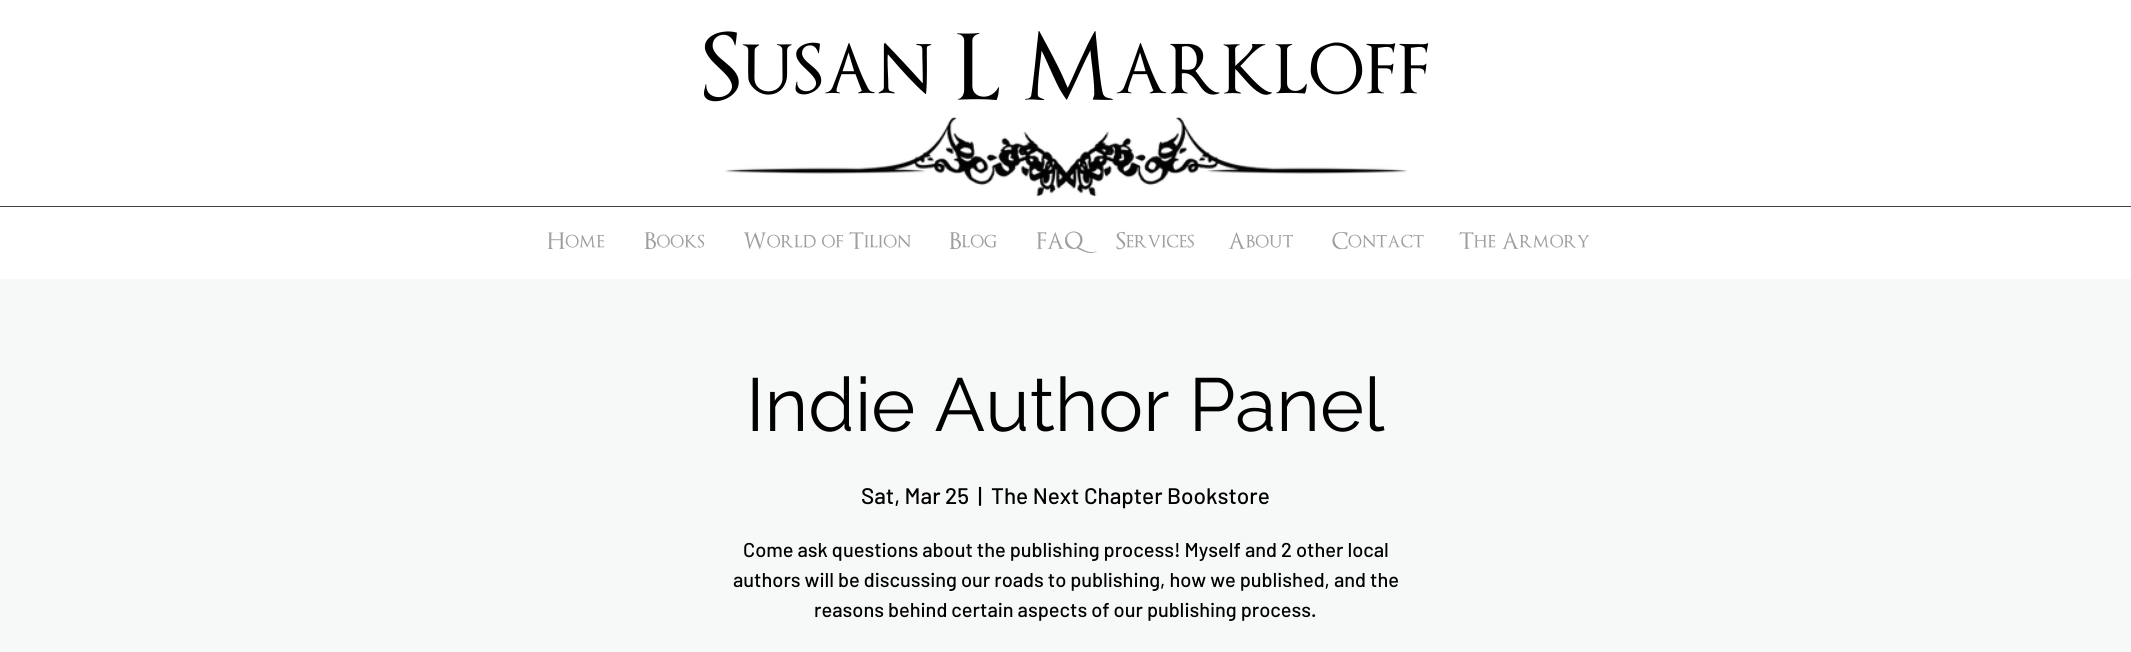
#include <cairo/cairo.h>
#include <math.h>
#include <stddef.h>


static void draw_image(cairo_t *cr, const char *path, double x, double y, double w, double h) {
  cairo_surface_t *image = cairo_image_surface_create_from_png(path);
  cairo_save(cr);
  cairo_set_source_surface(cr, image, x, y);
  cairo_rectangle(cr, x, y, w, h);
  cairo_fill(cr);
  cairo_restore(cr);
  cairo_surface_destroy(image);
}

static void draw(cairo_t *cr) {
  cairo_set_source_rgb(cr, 1, 1, 1);
  cairo_paint(cr);
  draw_image(cr, "images/1.png", 725, 117, 682, 80);
  cairo_set_source_rgb(cr, 64 / 255.0, 64 / 255.0, 64 / 255.0);
  cairo_rectangle(cr, 0, 206, 2131, 1);
  cairo_fill(cr);
  cairo_set_source_rgb(cr, 247 / 255.0, 249 / 255.0, 249 / 255.0);
  cairo_rectangle(cr, 0, 279, 2131, 373);
  cairo_fill(cr);
  cairo_select_font_face(cr, "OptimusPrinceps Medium", CAIRO_FONT_SLANT_NORMAL, CAIRO_FONT_WEIGHT_NORMAL);
  cairo_set_font_size(cr, 90);
  cairo_set_source_rgb(cr, 0, 0, 0);
  cairo_move_to(cr, 702, 100);
  cairo_show_text(cr, "Susan L Markloff");
  cairo_set_font_size(cr, 22.5);
  cairo_set_source_rgb(cr, 158 / 255.0, 158 / 255.0, 158 / 255.0);
  cairo_move_to(cr, 547, 249);
  cairo_show_text(cr, "Home");
  cairo_move_to(cr, 644, 249);
  cairo_show_text(cr, "Books");
  cairo_move_to(cr, 743, 249);
  cairo_show_text(cr, "World of Tilion");
  cairo_move_to(cr, 949, 249);
  cairo_show_text(cr, "Blog");
  cairo_move_to(cr, 1036, 249);
  cairo_show_text(cr, "FAQ");
  cairo_move_to(cr, 1116, 249);
  cairo_show_text(cr, "Services");
  cairo_move_to(cr, 1228, 249);
  cairo_show_text(cr, "About");
  cairo_move_to(cr, 1332, 249);
  cairo_show_text(cr, "Contact");
  cairo_move_to(cr, 1459, 249);
  cairo_show_text(cr, "The Armory");
  cairo_select_font_face(cr, "Raleway", CAIRO_FONT_SLANT_NORMAL, CAIRO_FONT_WEIGHT_NORMAL);
  cairo_set_font_size(cr, 75);
  cairo_set_source_rgb(cr, 0, 0, 0);
  cairo_move_to(cr, 746, 431);
  cairo_show_text(cr, "Indie Author Panel");
  cairo_select_font_face(cr, "Barlow Medium", CAIRO_FONT_SLANT_NORMAL, CAIRO_FONT_WEIGHT_NORMAL);
  cairo_set_font_size(cr, 22.5);
  cairo_move_to(cr, 861, 504);
  cairo_show_text(cr, "Sat, Mar 25");
  cairo_move_to(cr, 978, 504);
  cairo_show_text(cr, "|");
  cairo_move_to(cr, 991, 504);
  cairo_show_text(cr, "The Next Chapter Bookstore");
  cairo_set_font_size(cr, 20);
  cairo_move_to(cr, 743, 557);
  cairo_show_text(cr, "Come ask questions about the publishing process! Myself and 2 other local");
  cairo_move_to(cr, 733, 587);
  cairo_show_text(cr, "authors will be discussing our roads to publishing, how we published, and the");
  cairo_move_to(cr, 814, 617);
  cairo_show_text(cr, "reasons behind certain aspects of our publishing process.");
}

int main(void) {
  cairo_surface_t *surface = cairo_image_surface_create(CAIRO_FORMAT_RGB24, 2131, 652);
  cairo_t *cr = cairo_create(surface);
  cairo_font_options_t *options = cairo_font_options_create();
  cairo_font_options_set_hint_metrics(options, CAIRO_HINT_METRICS_OFF);
  cairo_font_options_set_hint_style(options, CAIRO_HINT_STYLE_NONE);
  cairo_set_font_options(cr, options);
  cairo_set_miter_limit(cr, 4);
  draw(cr);
  cairo_surface_write_to_png(surface, "out.png");
  cairo_font_options_destroy(options);
  cairo_destroy(cr);
  cairo_surface_destroy(surface);
  return 0;
}
